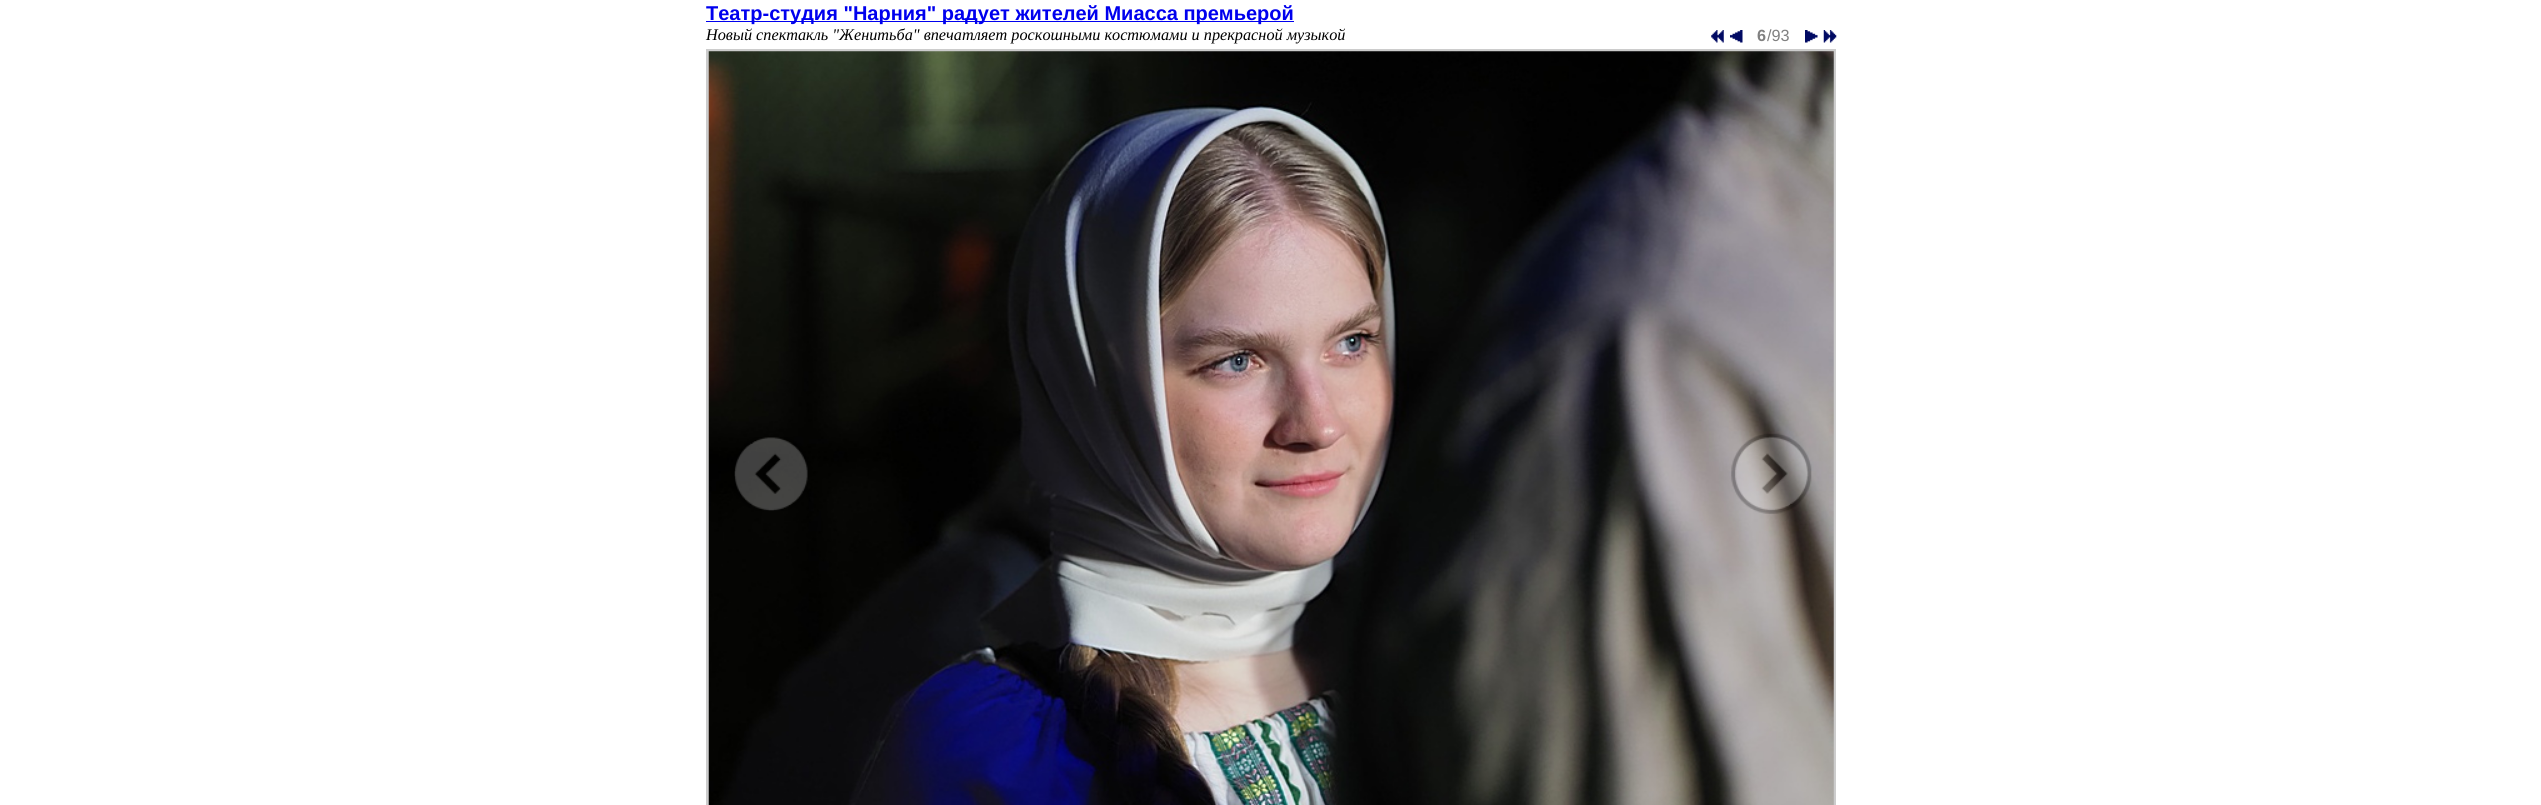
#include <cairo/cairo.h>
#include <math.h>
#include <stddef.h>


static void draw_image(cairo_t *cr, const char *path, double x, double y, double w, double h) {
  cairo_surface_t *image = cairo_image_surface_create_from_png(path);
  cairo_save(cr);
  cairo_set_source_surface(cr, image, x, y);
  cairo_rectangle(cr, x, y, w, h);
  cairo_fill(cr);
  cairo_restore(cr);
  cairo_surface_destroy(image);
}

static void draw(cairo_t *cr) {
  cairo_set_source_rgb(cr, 1, 1, 1);
  cairo_paint(cr);
  cairo_set_source_rgb(cr, 0, 0, 238 / 255.0);
  cairo_rectangle(cr, 706, 21, 588, 1);
  cairo_fill(cr);
  draw_image(cr, "images/1.png", 1711, 30, 13, 13);
  draw_image(cr, "images/2.png", 1730, 30, 13, 13);
  draw_image(cr, "images/3.png", 1805, 30, 13, 13);
  draw_image(cr, "images/4.png", 1823, 30, 14, 13);
  cairo_rectangle(cr, 707.5, 50.5, 1127, 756);
  cairo_set_source_rgb(cr, 204 / 255.0, 204 / 255.0, 204 / 255.0);
  cairo_set_line_width(cr, 3);
  cairo_stroke(cr);
  draw_image(cr, "images/5.png", 708, 51, 1126, 754);
  draw_image(cr, "images/6.png", 734, 437, 74, 74);
  draw_image(cr, "images/7.png", 1731, 433, 81, 81);
  cairo_select_font_face(cr, "Liberation Sans", CAIRO_FONT_SLANT_NORMAL, CAIRO_FONT_WEIGHT_BOLD);
  cairo_set_font_size(cr, 20);
  cairo_set_source_rgb(cr, 0, 0, 238 / 255.0);
  cairo_move_to(cr, 706, 20);
  cairo_show_text(cr, "Театр-студия \"Нарния\" радует жителей Миасса премьерой");
  cairo_select_font_face(cr, "Liberation Serif", CAIRO_FONT_SLANT_ITALIC, CAIRO_FONT_WEIGHT_NORMAL);
  cairo_set_font_size(cr, 16.25);
  cairo_set_source_rgb(cr, 0, 0, 0);
  cairo_move_to(cr, 706, 40);
  cairo_show_text(cr, "Новый спектакль \"Женитьба\" впечатляет роскошными костюмами и прекрасной музыкой");
  cairo_select_font_face(cr, "Liberation Sans", CAIRO_FONT_SLANT_NORMAL, CAIRO_FONT_WEIGHT_BOLD);
  cairo_set_source_rgb(cr, 128 / 255.0, 128 / 255.0, 128 / 255.0);
  cairo_move_to(cr, 1757, 41);
  cairo_show_text(cr, "6");
  cairo_select_font_face(cr, "Liberation Sans", CAIRO_FONT_SLANT_NORMAL, CAIRO_FONT_WEIGHT_NORMAL);
  cairo_move_to(cr, 1767, 41);
  cairo_show_text(cr, "/93");
}

int main(void) {
  cairo_surface_t *surface = cairo_image_surface_create(CAIRO_FORMAT_RGB24, 2541, 805);
  cairo_t *cr = cairo_create(surface);
  cairo_font_options_t *options = cairo_font_options_create();
  cairo_font_options_set_hint_metrics(options, CAIRO_HINT_METRICS_OFF);
  cairo_font_options_set_hint_style(options, CAIRO_HINT_STYLE_NONE);
  cairo_set_font_options(cr, options);
  cairo_set_miter_limit(cr, 4);
  draw(cr);
  cairo_surface_write_to_png(surface, "out.png");
  cairo_font_options_destroy(options);
  cairo_destroy(cr);
  cairo_surface_destroy(surface);
  return 0;
}
